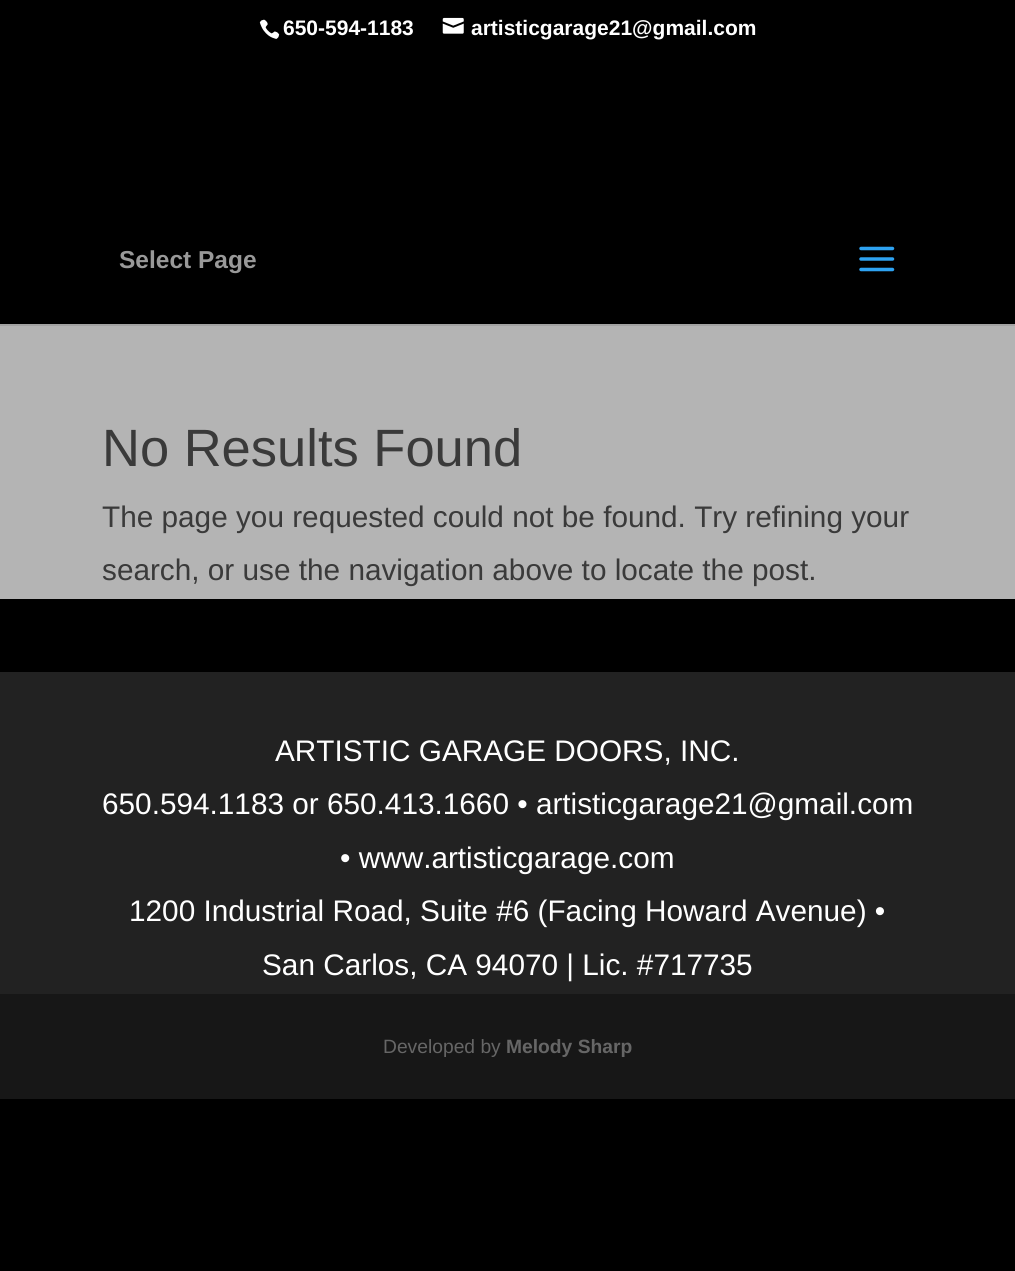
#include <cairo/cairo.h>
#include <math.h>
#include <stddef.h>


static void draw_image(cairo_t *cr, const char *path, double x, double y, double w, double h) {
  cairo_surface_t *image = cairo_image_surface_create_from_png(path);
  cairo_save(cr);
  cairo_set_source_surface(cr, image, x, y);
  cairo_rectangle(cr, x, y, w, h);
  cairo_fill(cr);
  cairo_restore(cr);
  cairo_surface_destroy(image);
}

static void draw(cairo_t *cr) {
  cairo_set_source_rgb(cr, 0, 0, 0);
  cairo_paint(cr);
  draw_image(cr, "images/1.png", 259, 19, 21, 20);
  draw_image(cr, "images/2.png", 442, 17, 22, 17);
  cairo_set_source_rgb(cr, 162 / 255.0, 162 / 255.0, 162 / 255.0);
  cairo_rectangle(cr, 0, 324, 1015, 2);
  cairo_fill(cr);
  draw_image(cr, "images/3.png", 859, 246, 36, 26);
  cairo_set_source_rgb(cr, 180 / 255.0, 180 / 255.0, 180 / 255.0);
  cairo_rectangle(cr, 0, 326, 1015, 273);
  cairo_fill(cr);
  cairo_set_source_rgb(cr, 34 / 255.0, 34 / 255.0, 34 / 255.0);
  cairo_rectangle(cr, 0, 672, 1015, 322);
  cairo_fill(cr);
  cairo_set_source_rgb(cr, 23 / 255.0, 23 / 255.0, 23 / 255.0);
  cairo_rectangle(cr, 0, 994, 1015, 105);
  cairo_fill(cr);
  cairo_select_font_face(cr, "Liberation Sans", CAIRO_FONT_SLANT_NORMAL, CAIRO_FONT_WEIGHT_BOLD);
  cairo_set_font_size(cr, 21);
  cairo_set_source_rgb(cr, 1, 1, 1);
  cairo_move_to(cr, 283, 35);
  cairo_show_text(cr, "650-594-1183");
  cairo_move_to(cr, 471, 35);
  cairo_show_text(cr, "artisticgarage21@gmail.com");
  cairo_set_font_size(cr, 24.5);
  cairo_set_source_rgb(cr, 153 / 255.0, 153 / 255.0, 153 / 255.0);
  cairo_move_to(cr, 119, 268);
  cairo_show_text(cr, "Select Page");
  cairo_select_font_face(cr, "Liberation Sans", CAIRO_FONT_SLANT_NORMAL, CAIRO_FONT_WEIGHT_NORMAL);
  cairo_set_font_size(cr, 52.5);
  cairo_set_source_rgb(cr, 58 / 255.0, 58 / 255.0, 58 / 255.0);
  cairo_move_to(cr, 102, 466);
  cairo_show_text(cr, "No Results Found");
  cairo_set_font_size(cr, 29.75);
  cairo_move_to(cr, 102, 527);
  cairo_show_text(cr, "The page you requested could not be found. Try refining your");
  cairo_move_to(cr, 102, 580);
  cairo_show_text(cr, "search, or use the navigation above to locate the post.");
  cairo_set_source_rgb(cr, 1, 1, 1);
  cairo_move_to(cr, 275, 761);
  cairo_show_text(cr, "ARTISTIC GARAGE DOORS, INC.");
  cairo_move_to(cr, 102, 814);
  cairo_show_text(cr, "650.594.1183 or 650.413.1660 • artisticgarage21@gmail.com");
  cairo_move_to(cr, 340, 868);
  cairo_show_text(cr, "• www.artisticgarage.com");
  cairo_move_to(cr, 129, 921);
  cairo_show_text(cr, "1200 Industrial Road, Suite #6 (Facing Howard Avenue) •");
  cairo_move_to(cr, 262, 975);
  cairo_show_text(cr, "San Carlos, CA 94070 | Lic. #717735");
  cairo_set_font_size(cr, 19.25);
  cairo_set_source_rgb(cr, 102 / 255.0, 102 / 255.0, 102 / 255.0);
  cairo_move_to(cr, 383, 1053);
  cairo_show_text(cr, "Developed by");
  cairo_select_font_face(cr, "Liberation Sans", CAIRO_FONT_SLANT_NORMAL, CAIRO_FONT_WEIGHT_BOLD);
  cairo_move_to(cr, 506, 1053);
  cairo_show_text(cr, "Melody Sharp");
}

int main(void) {
  cairo_surface_t *surface = cairo_image_surface_create(CAIRO_FORMAT_RGB24, 1015, 1271);
  cairo_t *cr = cairo_create(surface);
  cairo_font_options_t *options = cairo_font_options_create();
  cairo_font_options_set_hint_metrics(options, CAIRO_HINT_METRICS_OFF);
  cairo_font_options_set_hint_style(options, CAIRO_HINT_STYLE_NONE);
  cairo_set_font_options(cr, options);
  cairo_set_miter_limit(cr, 4);
  draw(cr);
  cairo_surface_write_to_png(surface, "out.png");
  cairo_font_options_destroy(options);
  cairo_destroy(cr);
  cairo_surface_destroy(surface);
  return 0;
}
